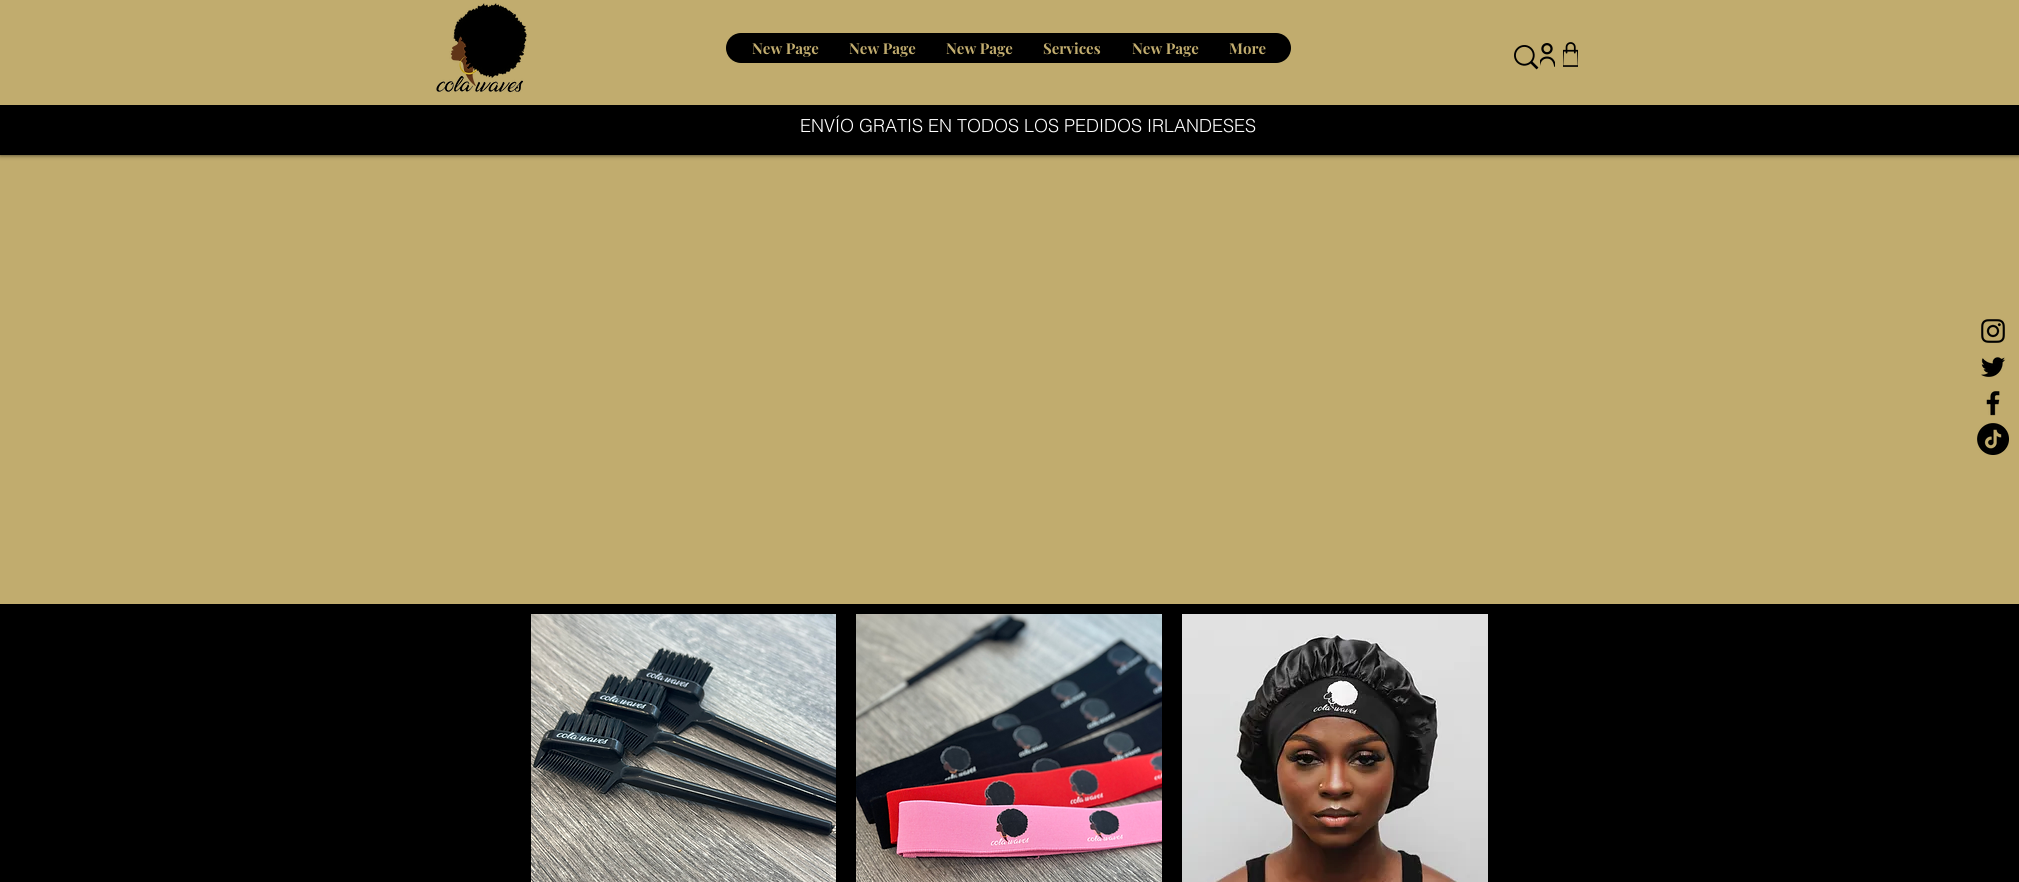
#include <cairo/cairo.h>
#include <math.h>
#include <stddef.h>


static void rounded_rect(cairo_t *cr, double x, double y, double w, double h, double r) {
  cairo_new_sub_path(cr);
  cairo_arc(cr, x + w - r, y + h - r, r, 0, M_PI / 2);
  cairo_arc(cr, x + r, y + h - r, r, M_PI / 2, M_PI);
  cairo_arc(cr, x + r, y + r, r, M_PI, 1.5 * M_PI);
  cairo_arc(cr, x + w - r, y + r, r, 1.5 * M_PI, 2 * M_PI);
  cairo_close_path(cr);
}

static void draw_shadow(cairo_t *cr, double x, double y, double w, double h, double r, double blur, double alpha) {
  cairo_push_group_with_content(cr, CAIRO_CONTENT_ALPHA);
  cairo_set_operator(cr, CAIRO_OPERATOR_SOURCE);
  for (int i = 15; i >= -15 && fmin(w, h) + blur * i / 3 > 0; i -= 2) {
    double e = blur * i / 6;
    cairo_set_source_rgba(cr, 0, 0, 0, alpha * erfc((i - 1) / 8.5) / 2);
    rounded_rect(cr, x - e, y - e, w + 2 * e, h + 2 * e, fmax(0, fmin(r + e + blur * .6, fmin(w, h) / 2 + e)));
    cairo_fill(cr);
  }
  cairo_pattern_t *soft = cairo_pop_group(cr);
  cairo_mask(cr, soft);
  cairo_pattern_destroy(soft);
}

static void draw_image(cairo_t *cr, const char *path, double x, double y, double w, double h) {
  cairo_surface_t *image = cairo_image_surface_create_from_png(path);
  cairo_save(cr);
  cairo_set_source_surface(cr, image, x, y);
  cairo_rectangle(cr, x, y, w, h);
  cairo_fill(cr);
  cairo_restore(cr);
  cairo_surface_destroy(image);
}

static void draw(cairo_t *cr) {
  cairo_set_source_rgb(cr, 193 / 255.0, 172 / 255.0, 110 / 255.0);
  cairo_paint(cr);
  cairo_set_source_rgb(cr, 0, 0, 0);
  draw_shadow(cr, 0, 0, 2019, 155, 0, 2.5, 0.7);
  cairo_set_source_rgb(cr, 193 / 255.0, 172 / 255.0, 110 / 255.0);
  cairo_rectangle(cr, 0, 0, 2019, 105);
  cairo_fill(cr);
  draw_image(cr, "images/1.png", 436, 3, 91, 90);
  cairo_set_source_rgb(cr, 0, 0, 0);
  rounded_rect(cr, 726, 33, 565, 30, 15);
  cairo_fill(cr);
  draw_image(cr, "images/2.png", 1514, 45, 25, 25);
  draw_image(cr, "images/3.png", 1540, 43, 15, 24);
  draw_image(cr, "images/4.png", 1563, 42, 15, 25);
  cairo_rectangle(cr, 0, 105, 2019, 50);
  cairo_fill(cr);
  draw_image(cr, "images/5.png", 1981, 319, 24, 24);
  draw_image(cr, "images/6.png", 1981, 357, 25, 20);
  draw_image(cr, "images/7.png", 1986, 391, 14, 25);
  draw_image(cr, "images/8.png", 1977, 423, 32, 32);
  cairo_rectangle(cr, 0, 604, 2019, 278);
  cairo_fill(cr);
  draw_image(cr, "images/9.png", 531, 614, 305, 268);
  draw_image(cr, "images/10.png", 856, 614, 306, 268);
  draw_image(cr, "images/11.png", 1182, 614, 306, 268);
  cairo_select_font_face(cr, "Playfair Display", CAIRO_FONT_SLANT_NORMAL, CAIRO_FONT_WEIGHT_BOLD);
  cairo_set_font_size(cr, 15);
  cairo_set_source_rgb(cr, 193 / 255.0, 172 / 255.0, 110 / 255.0);
  cairo_move_to(cr, 752, 54);
  cairo_show_text(cr, "New Page");
  cairo_move_to(cr, 849, 54);
  cairo_show_text(cr, "New Page");
  cairo_move_to(cr, 946, 54);
  cairo_show_text(cr, "New Page");
  cairo_move_to(cr, 1043, 54);
  cairo_show_text(cr, "Services");
  cairo_move_to(cr, 1132, 54);
  cairo_show_text(cr, "New Page");
  cairo_move_to(cr, 1229, 54);
  cairo_show_text(cr, "More");
  cairo_select_font_face(cr, "helvetica Light", CAIRO_FONT_SLANT_NORMAL, CAIRO_FONT_WEIGHT_NORMAL);
  cairo_set_font_size(cr, 18);
  cairo_set_source_rgb(cr, 1, 1, 1);
  cairo_move_to(cr, 800, 132);
  cairo_show_text(cr, "ENVÍO GRATIS EN TODOS LOS PEDIDOS IRLANDESES");
}

int main(void) {
  cairo_surface_t *surface = cairo_image_surface_create(CAIRO_FORMAT_RGB24, 2019, 882);
  cairo_t *cr = cairo_create(surface);
  cairo_font_options_t *options = cairo_font_options_create();
  cairo_font_options_set_hint_metrics(options, CAIRO_HINT_METRICS_OFF);
  cairo_font_options_set_hint_style(options, CAIRO_HINT_STYLE_NONE);
  cairo_set_font_options(cr, options);
  cairo_set_miter_limit(cr, 4);
  draw(cr);
  cairo_surface_write_to_png(surface, "out.png");
  cairo_font_options_destroy(options);
  cairo_destroy(cr);
  cairo_surface_destroy(surface);
  return 0;
}
